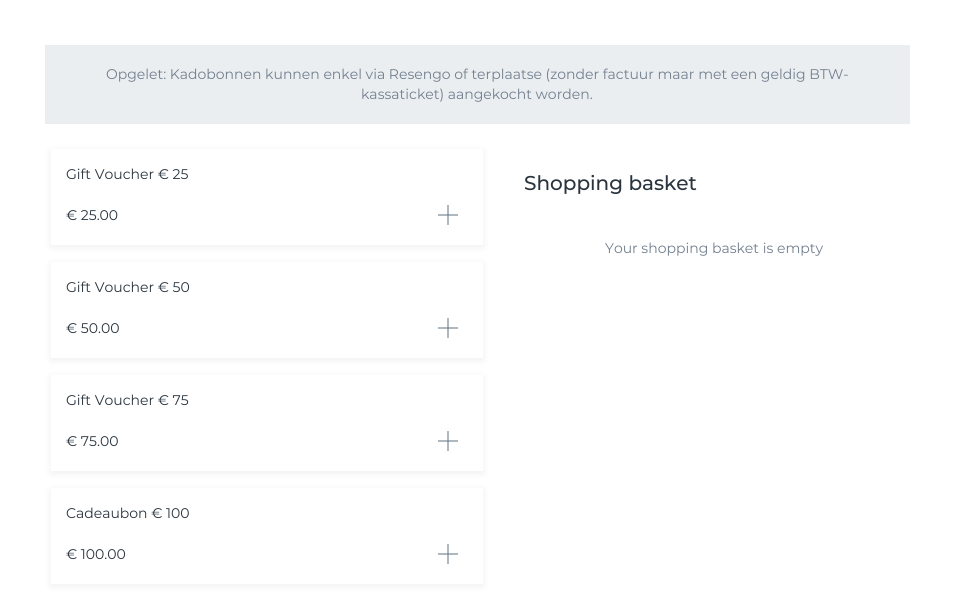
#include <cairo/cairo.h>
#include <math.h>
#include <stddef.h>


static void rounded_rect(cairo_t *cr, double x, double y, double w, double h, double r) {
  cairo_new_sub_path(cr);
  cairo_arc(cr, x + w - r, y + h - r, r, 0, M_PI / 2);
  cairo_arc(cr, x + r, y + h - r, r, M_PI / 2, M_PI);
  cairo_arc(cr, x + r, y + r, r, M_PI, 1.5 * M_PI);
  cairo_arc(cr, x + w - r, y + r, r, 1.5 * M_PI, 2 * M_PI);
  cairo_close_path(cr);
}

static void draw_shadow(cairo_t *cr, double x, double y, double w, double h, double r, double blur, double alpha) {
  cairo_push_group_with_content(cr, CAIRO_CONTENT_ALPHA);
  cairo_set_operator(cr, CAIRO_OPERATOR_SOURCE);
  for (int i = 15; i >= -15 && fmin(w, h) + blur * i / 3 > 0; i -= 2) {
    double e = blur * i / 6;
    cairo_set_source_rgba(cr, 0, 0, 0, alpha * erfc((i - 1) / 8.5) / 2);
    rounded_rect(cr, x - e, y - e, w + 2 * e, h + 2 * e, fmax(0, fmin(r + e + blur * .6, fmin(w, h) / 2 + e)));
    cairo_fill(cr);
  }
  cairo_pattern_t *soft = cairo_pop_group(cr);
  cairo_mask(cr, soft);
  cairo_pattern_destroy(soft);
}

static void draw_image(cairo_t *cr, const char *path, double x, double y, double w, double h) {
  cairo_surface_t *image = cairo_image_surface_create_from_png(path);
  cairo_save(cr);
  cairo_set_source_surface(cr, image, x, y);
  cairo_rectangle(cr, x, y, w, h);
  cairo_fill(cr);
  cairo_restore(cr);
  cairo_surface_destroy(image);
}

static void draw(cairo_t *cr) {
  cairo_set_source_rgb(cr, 1, 1, 1);
  cairo_paint(cr);
  cairo_set_source_rgb(cr, 235 / 255.0, 238 / 255.0, 241 / 255.0);
  cairo_rectangle(cr, 45, 45, 865, 79);
  cairo_fill(cr);
  cairo_save(cr);
  cairo_set_fill_rule(cr, CAIRO_FILL_RULE_EVEN_ODD);
  cairo_new_path(cr);
  cairo_move_to(cr, 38, 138);
  cairo_line_to(cr, 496, 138);
  cairo_line_to(cr, 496, 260);
  cairo_line_to(cr, 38, 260);
  cairo_close_path(cr);
  cairo_move_to(cr, 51, 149);
  cairo_line_to(cr, 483, 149);
  cairo_line_to(cr, 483, 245);
  cairo_line_to(cr, 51, 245);
  cairo_close_path(cr);
  cairo_clip(cr);
  cairo_set_source_rgb(cr, 42 / 255.0, 52 / 255.0, 62 / 255.0);
  draw_shadow(cr, 51, 151, 432, 96, 0, 4, 0.08);
  cairo_restore(cr);
  draw_image(cr, "images/1.png", 438, 205, 20, 20);
  cairo_save(cr);
  cairo_set_fill_rule(cr, CAIRO_FILL_RULE_EVEN_ODD);
  cairo_new_path(cr);
  cairo_move_to(cr, 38, 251);
  cairo_line_to(cr, 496, 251);
  cairo_line_to(cr, 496, 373);
  cairo_line_to(cr, 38, 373);
  cairo_close_path(cr);
  cairo_move_to(cr, 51, 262);
  cairo_line_to(cr, 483, 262);
  cairo_line_to(cr, 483, 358);
  cairo_line_to(cr, 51, 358);
  cairo_close_path(cr);
  cairo_clip(cr);
  cairo_set_source_rgb(cr, 42 / 255.0, 52 / 255.0, 62 / 255.0);
  draw_shadow(cr, 51, 264, 432, 96, 0, 4, 0.08);
  cairo_restore(cr);
  draw_image(cr, "images/1.png", 438, 318, 20, 20);
  cairo_save(cr);
  cairo_set_fill_rule(cr, CAIRO_FILL_RULE_EVEN_ODD);
  cairo_new_path(cr);
  cairo_move_to(cr, 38, 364);
  cairo_line_to(cr, 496, 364);
  cairo_line_to(cr, 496, 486);
  cairo_line_to(cr, 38, 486);
  cairo_close_path(cr);
  cairo_move_to(cr, 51, 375);
  cairo_line_to(cr, 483, 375);
  cairo_line_to(cr, 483, 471);
  cairo_line_to(cr, 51, 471);
  cairo_close_path(cr);
  cairo_clip(cr);
  cairo_set_source_rgb(cr, 42 / 255.0, 52 / 255.0, 62 / 255.0);
  draw_shadow(cr, 51, 377, 432, 96, 0, 4, 0.08);
  cairo_restore(cr);
  draw_image(cr, "images/1.png", 438, 431, 20, 20);
  cairo_save(cr);
  cairo_set_fill_rule(cr, CAIRO_FILL_RULE_EVEN_ODD);
  cairo_new_path(cr);
  cairo_move_to(cr, 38, 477);
  cairo_line_to(cr, 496, 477);
  cairo_line_to(cr, 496, 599);
  cairo_line_to(cr, 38, 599);
  cairo_close_path(cr);
  cairo_move_to(cr, 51, 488);
  cairo_line_to(cr, 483, 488);
  cairo_line_to(cr, 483, 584);
  cairo_line_to(cr, 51, 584);
  cairo_close_path(cr);
  cairo_clip(cr);
  cairo_set_source_rgb(cr, 42 / 255.0, 52 / 255.0, 62 / 255.0);
  draw_shadow(cr, 51, 490, 432, 96, 0, 4, 0.08);
  cairo_restore(cr);
  draw_image(cr, "images/1.png", 438, 544, 20, 20);
  cairo_select_font_face(cr, "Montserrat", CAIRO_FONT_SLANT_NORMAL, CAIRO_FONT_WEIGHT_NORMAL);
  cairo_set_font_size(cr, 14);
  cairo_set_source_rgb(cr, 114 / 255.0, 127 / 255.0, 142 / 255.0);
  cairo_move_to(cr, 106, 79);
  cairo_show_text(cr, "Opgelet: Kadobonnen kunnen enkel via Resengo of terplaatse (zonder factuur maar met een geldig BTW-");
  cairo_move_to(cr, 361, 99);
  cairo_show_text(cr, "kassaticket) aangekocht worden.");
  cairo_set_source_rgb(cr, 42 / 255.0, 52 / 255.0, 62 / 255.0);
  cairo_move_to(cr, 66, 179);
  cairo_show_text(cr, "Gift Voucher € 25");
  cairo_move_to(cr, 66, 220);
  cairo_show_text(cr, "€ 25.00");
  cairo_move_to(cr, 66, 292);
  cairo_show_text(cr, "Gift Voucher € 50");
  cairo_move_to(cr, 66, 333);
  cairo_show_text(cr, "€ 50.00");
  cairo_move_to(cr, 66, 405);
  cairo_show_text(cr, "Gift Voucher € 75");
  cairo_move_to(cr, 66, 446);
  cairo_show_text(cr, "€ 75.00");
  cairo_move_to(cr, 66, 518);
  cairo_show_text(cr, "Cadeaubon € 100");
  cairo_move_to(cr, 66, 559);
  cairo_show_text(cr, "€ 100.00");
  cairo_select_font_face(cr, "Montserrat Medium", CAIRO_FONT_SLANT_NORMAL, CAIRO_FONT_WEIGHT_NORMAL);
  cairo_set_font_size(cr, 20);
  cairo_move_to(cr, 524, 190);
  cairo_show_text(cr, "Shopping basket");
  cairo_select_font_face(cr, "Montserrat", CAIRO_FONT_SLANT_NORMAL, CAIRO_FONT_WEIGHT_NORMAL);
  cairo_set_font_size(cr, 14);
  cairo_set_source_rgb(cr, 114 / 255.0, 127 / 255.0, 142 / 255.0);
  cairo_move_to(cr, 605, 253);
  cairo_show_text(cr, "Your shopping basket is empty");
}

int main(void) {
  cairo_surface_t *surface = cairo_image_surface_create(CAIRO_FORMAT_RGB24, 954, 615);
  cairo_t *cr = cairo_create(surface);
  cairo_font_options_t *options = cairo_font_options_create();
  cairo_font_options_set_hint_metrics(options, CAIRO_HINT_METRICS_OFF);
  cairo_font_options_set_hint_style(options, CAIRO_HINT_STYLE_NONE);
  cairo_set_font_options(cr, options);
  cairo_set_miter_limit(cr, 4);
  draw(cr);
  cairo_surface_write_to_png(surface, "out.png");
  cairo_font_options_destroy(options);
  cairo_destroy(cr);
  cairo_surface_destroy(surface);
  return 0;
}
